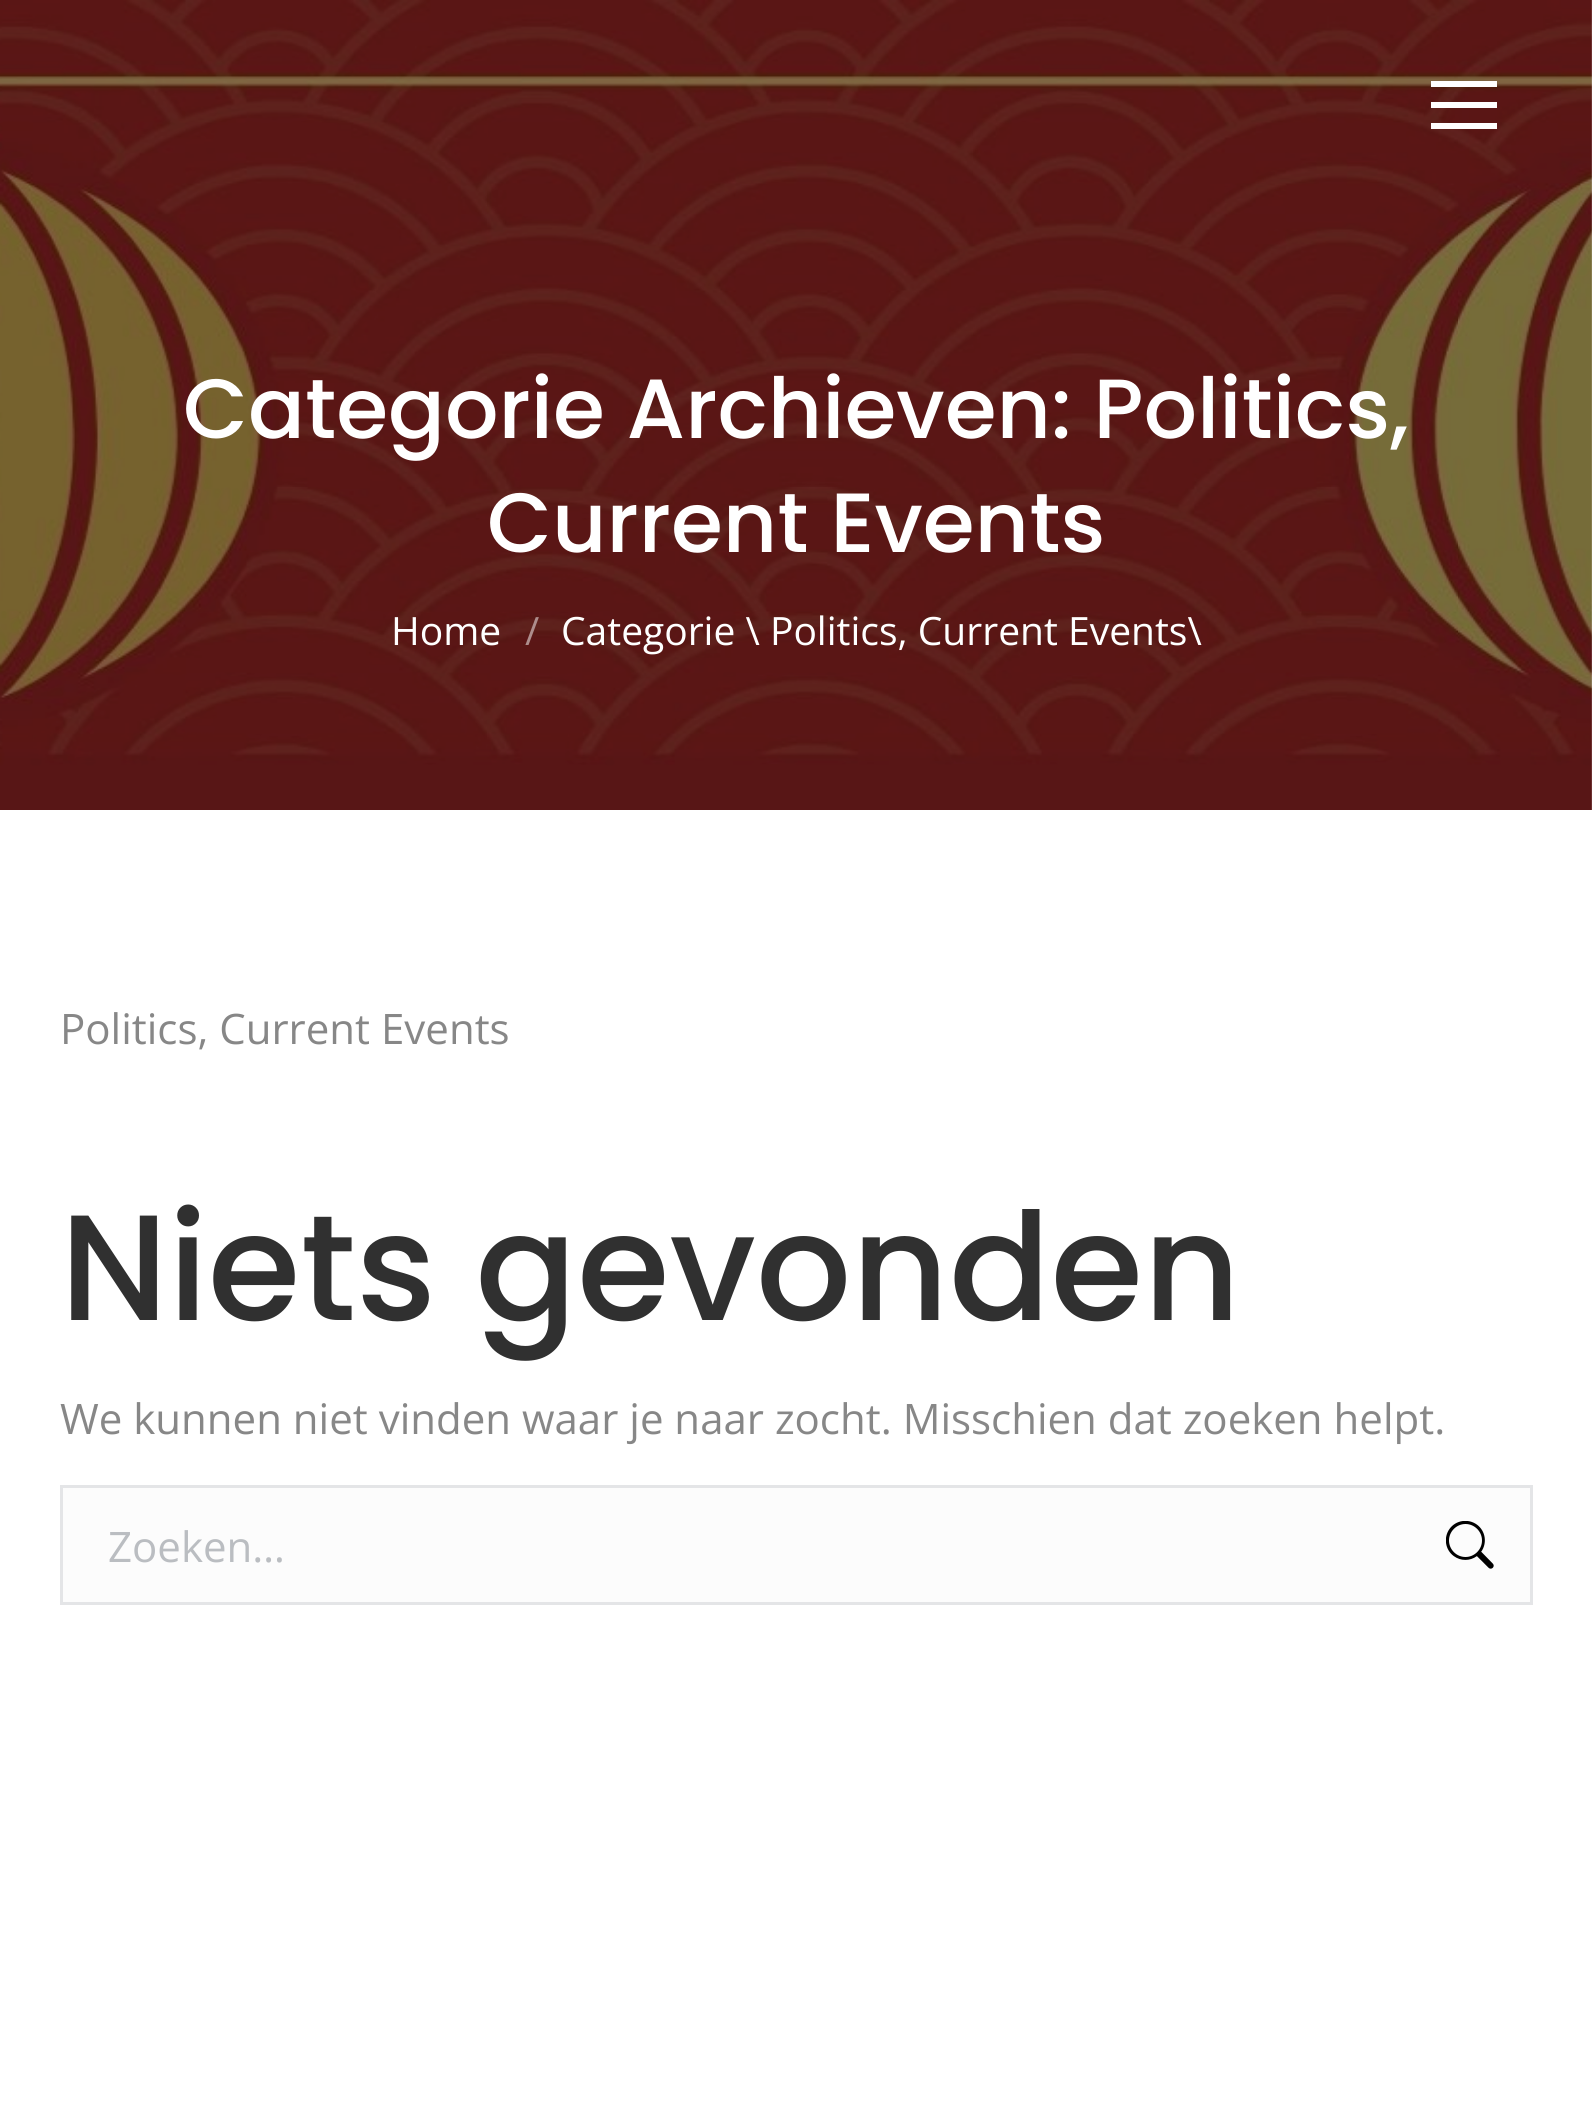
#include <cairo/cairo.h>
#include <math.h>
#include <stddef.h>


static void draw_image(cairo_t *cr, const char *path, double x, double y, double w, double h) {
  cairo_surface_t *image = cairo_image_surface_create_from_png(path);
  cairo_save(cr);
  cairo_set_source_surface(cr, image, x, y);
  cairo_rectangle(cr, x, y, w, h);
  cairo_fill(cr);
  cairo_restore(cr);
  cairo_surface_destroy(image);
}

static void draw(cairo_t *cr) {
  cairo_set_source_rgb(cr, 1, 1, 1);
  cairo_paint(cr);
  draw_image(cr, "images/1.png", 0, 0, 1592, 810);
  cairo_set_source_rgb(cr, 1, 1, 1);
  cairo_rectangle(cr, 1431, 81, 66, 6);
  cairo_fill(cr);
  cairo_rectangle(cr, 1431, 102, 66, 6);
  cairo_fill(cr);
  cairo_rectangle(cr, 1431, 123, 66, 6);
  cairo_fill(cr);
  cairo_set_source_rgb(cr, 252 / 255.0, 252 / 255.0, 252 / 255.0);
  cairo_rectangle(cr, 61.5, 1486.5, 1470, 117);
  cairo_fill_preserve(cr);
  cairo_set_source_rgb(cr, 228 / 255.0, 229 / 255.0, 231 / 255.0);
  cairo_set_line_width(cr, 3);
  cairo_stroke(cr);
  draw_image(cr, "images/2.png", 1446, 1521, 48, 48);
  cairo_select_font_face(cr, "Poppins Medium", CAIRO_FONT_SLANT_NORMAL, CAIRO_FONT_WEIGHT_NORMAL);
  cairo_set_font_size(cr, 84);
  cairo_set_source_rgb(cr, 1, 1, 1);
  cairo_move_to(cr, 183, 438);
  cairo_show_text(cr, "Categorie Archieven: Politics,");
  cairo_move_to(cr, 487, 552);
  cairo_show_text(cr, "Current Events");
  cairo_select_font_face(cr, "Open Sans", CAIRO_FONT_SLANT_NORMAL, CAIRO_FONT_WEIGHT_NORMAL);
  cairo_set_font_size(cr, 39);
  cairo_move_to(cr, 391, 645);
  cairo_show_text(cr, "Home");
  cairo_set_source_rgb(cr, 173 / 255.0, 141 / 255.0, 140 / 255.0);
  cairo_move_to(cr, 525, 645);
  cairo_show_text(cr, "/");
  cairo_set_source_rgb(cr, 1, 1, 1);
  cairo_move_to(cr, 561, 645);
  cairo_show_text(cr, "Categorie \\ Politics, Current Events\\");
  cairo_set_font_size(cr, 42);
  cairo_set_source_rgb(cr, 135 / 255.0, 135 / 255.0, 135 / 255.0);
  cairo_move_to(cr, 60, 1044);
  cairo_show_text(cr, "Politics, Current Events");
  cairo_select_font_face(cr, "Poppins Medium", CAIRO_FONT_SLANT_NORMAL, CAIRO_FONT_WEIGHT_NORMAL);
  cairo_set_font_size(cr, 150);
  cairo_set_source_rgb(cr, 48 / 255.0, 48 / 255.0, 48 / 255.0);
  cairo_move_to(cr, 60, 1320);
  cairo_show_text(cr, "Niets gevonden");
  cairo_select_font_face(cr, "Open Sans", CAIRO_FONT_SLANT_NORMAL, CAIRO_FONT_WEIGHT_NORMAL);
  cairo_set_font_size(cr, 42);
  cairo_set_source_rgb(cr, 135 / 255.0, 135 / 255.0, 135 / 255.0);
  cairo_move_to(cr, 60, 1434);
  cairo_show_text(cr, "We kunnen niet vinden waar je naar zocht. Misschien dat zoeken helpt.");
  cairo_set_source_rgb(cr, 186 / 255.0, 189 / 255.0, 193 / 255.0);
  cairo_move_to(cr, 108, 1562);
  cairo_show_text(cr, "Zoeken…");
}

int main(void) {
  cairo_surface_t *surface = cairo_image_surface_create(CAIRO_FORMAT_RGB24, 1592, 2121);
  cairo_t *cr = cairo_create(surface);
  cairo_font_options_t *options = cairo_font_options_create();
  cairo_font_options_set_hint_metrics(options, CAIRO_HINT_METRICS_OFF);
  cairo_font_options_set_hint_style(options, CAIRO_HINT_STYLE_NONE);
  cairo_set_font_options(cr, options);
  cairo_set_miter_limit(cr, 4);
  draw(cr);
  cairo_surface_write_to_png(surface, "out.png");
  cairo_font_options_destroy(options);
  cairo_destroy(cr);
  cairo_surface_destroy(surface);
  return 0;
}
